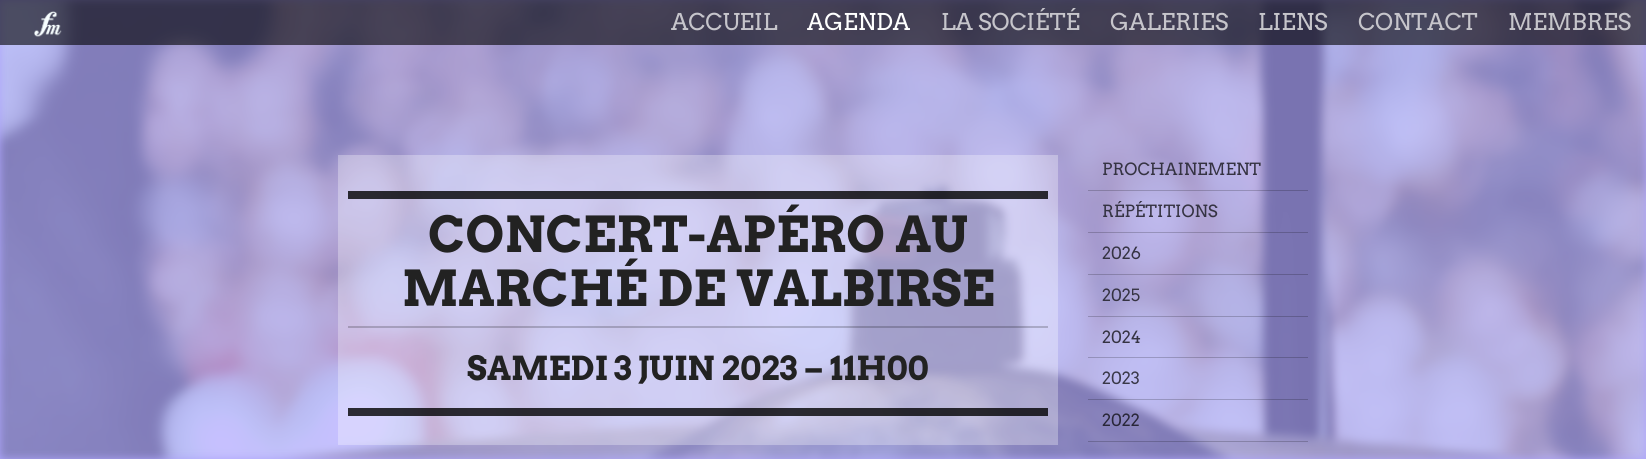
#include <cairo/cairo.h>
#include <math.h>
#include <stddef.h>


static void draw_image(cairo_t *cr, const char *path, double x, double y, double w, double h) {
  cairo_surface_t *image = cairo_image_surface_create_from_png(path);
  cairo_save(cr);
  cairo_set_source_surface(cr, image, x, y);
  cairo_rectangle(cr, x, y, w, h);
  cairo_fill(cr);
  cairo_restore(cr);
  cairo_surface_destroy(image);
}

static void draw(cairo_t *cr) {
  cairo_set_source_rgb(cr, 173 / 255.0, 165 / 255.0, 253 / 255.0);
  cairo_paint(cr);
  draw_image(cr, "images/2.png", 0, 0, 1646, 459);
  cairo_set_source_rgba(cr, 0, 0, 0, 0.6);
  cairo_rectangle(cr, 0, 0, 1646, 45);
  cairo_fill(cr);
  draw_image(cr, "images/1.png", 34, 11, 28, 26);
  cairo_set_source_rgba(cr, 1, 1, 1, 0.3);
  cairo_rectangle(cr, 338, 155, 720, 290);
  cairo_fill(cr);
  cairo_set_source_rgba(cr, 0, 0, 0, 0.8);
  cairo_rectangle(cr, 348, 191, 700, 8);
  cairo_fill(cr);
  cairo_set_source_rgba(cr, 0, 0, 0, 0.2);
  cairo_rectangle(cr, 348, 326, 700, 2);
  cairo_fill(cr);
  cairo_set_source_rgba(cr, 0, 0, 0, 0.8);
  cairo_rectangle(cr, 348, 408, 700, 8);
  cairo_fill(cr);
  cairo_set_source_rgba(cr, 0, 0, 0, 0.2);
  cairo_rectangle(cr, 1088, 190, 220, 1);
  cairo_fill(cr);
  cairo_rectangle(cr, 1088, 232, 220, 1);
  cairo_fill(cr);
  cairo_rectangle(cr, 1088, 274, 220, 1);
  cairo_fill(cr);
  cairo_rectangle(cr, 1088, 316, 220, 1);
  cairo_fill(cr);
  cairo_rectangle(cr, 1088, 357, 220, 1);
  cairo_fill(cr);
  cairo_rectangle(cr, 1088, 399, 220, 1);
  cairo_fill(cr);
  cairo_rectangle(cr, 1088, 441, 220, 1);
  cairo_fill(cr);
  cairo_select_font_face(cr, "Arvo", CAIRO_FONT_SLANT_NORMAL, CAIRO_FONT_WEIGHT_NORMAL);
  cairo_set_font_size(cr, 23);
  cairo_set_source_rgb(cr, 198 / 255.0, 197 / 255.0, 203 / 255.0);
  cairo_move_to(cr, 671, 30);
  cairo_show_text(cr, "ACCUEIL");
  cairo_set_source_rgb(cr, 1, 1, 1);
  cairo_move_to(cr, 807, 30);
  cairo_show_text(cr, "AGENDA");
  cairo_set_source_rgb(cr, 198 / 255.0, 197 / 255.0, 203 / 255.0);
  cairo_move_to(cr, 941, 30);
  cairo_show_text(cr, "LA SOCIÉTÉ");
  cairo_move_to(cr, 1110, 30);
  cairo_show_text(cr, "GALERIES");
  cairo_move_to(cr, 1258, 30);
  cairo_show_text(cr, "LIENS");
  cairo_move_to(cr, 1358, 30);
  cairo_show_text(cr, "CONTACT");
  cairo_move_to(cr, 1508, 30);
  cairo_show_text(cr, "MEMBRES");
  cairo_select_font_face(cr, "Arvo", CAIRO_FONT_SLANT_NORMAL, CAIRO_FONT_WEIGHT_BOLD);
  cairo_set_font_size(cr, 49.4);
  cairo_set_source_rgb(cr, 34 / 255.0, 34 / 255.0, 34 / 255.0);
  cairo_move_to(cr, 428, 252);
  cairo_show_text(cr, "CONCERT-APÉRO AU");
  cairo_move_to(cr, 402, 306);
  cairo_show_text(cr, "MARCHÉ DE VALBIRSE");
  cairo_set_font_size(cr, 32.9);
  cairo_move_to(cr, 467, 380);
  cairo_show_text(cr, "SAMEDI 3 JUIN 2023 – 11H00");
  cairo_select_font_face(cr, "Arvo", CAIRO_FONT_SLANT_NORMAL, CAIRO_FONT_WEIGHT_NORMAL);
  cairo_set_font_size(cr, 16.75);
  cairo_set_source_rgb(cr, 53 / 255.0, 51 / 255.0, 66 / 255.0);
  cairo_move_to(cr, 1102, 175);
  cairo_show_text(cr, "PROCHAINEMENT");
  cairo_move_to(cr, 1102, 217);
  cairo_show_text(cr, "RÉPÉTITIONS");
  cairo_move_to(cr, 1102, 259);
  cairo_show_text(cr, "2026");
  cairo_move_to(cr, 1102, 301);
  cairo_show_text(cr, "2025");
  cairo_move_to(cr, 1102, 343);
  cairo_show_text(cr, "2024");
  cairo_set_source_rgb(cr, 57 / 255.0, 56 / 255.0, 72 / 255.0);
  cairo_move_to(cr, 1102, 384);
  cairo_show_text(cr, "2023");
  cairo_set_source_rgb(cr, 41 / 255.0, 39 / 255.0, 56 / 255.0);
  cairo_move_to(cr, 1102, 426);
  cairo_show_text(cr, "2022");
}

int main(void) {
  cairo_surface_t *surface = cairo_image_surface_create(CAIRO_FORMAT_RGB24, 1646, 459);
  cairo_t *cr = cairo_create(surface);
  cairo_font_options_t *options = cairo_font_options_create();
  cairo_font_options_set_hint_metrics(options, CAIRO_HINT_METRICS_OFF);
  cairo_font_options_set_hint_style(options, CAIRO_HINT_STYLE_NONE);
  cairo_set_font_options(cr, options);
  cairo_set_miter_limit(cr, 4);
  draw(cr);
  cairo_surface_write_to_png(surface, "out.png");
  cairo_font_options_destroy(options);
  cairo_destroy(cr);
  cairo_surface_destroy(surface);
  return 0;
}
